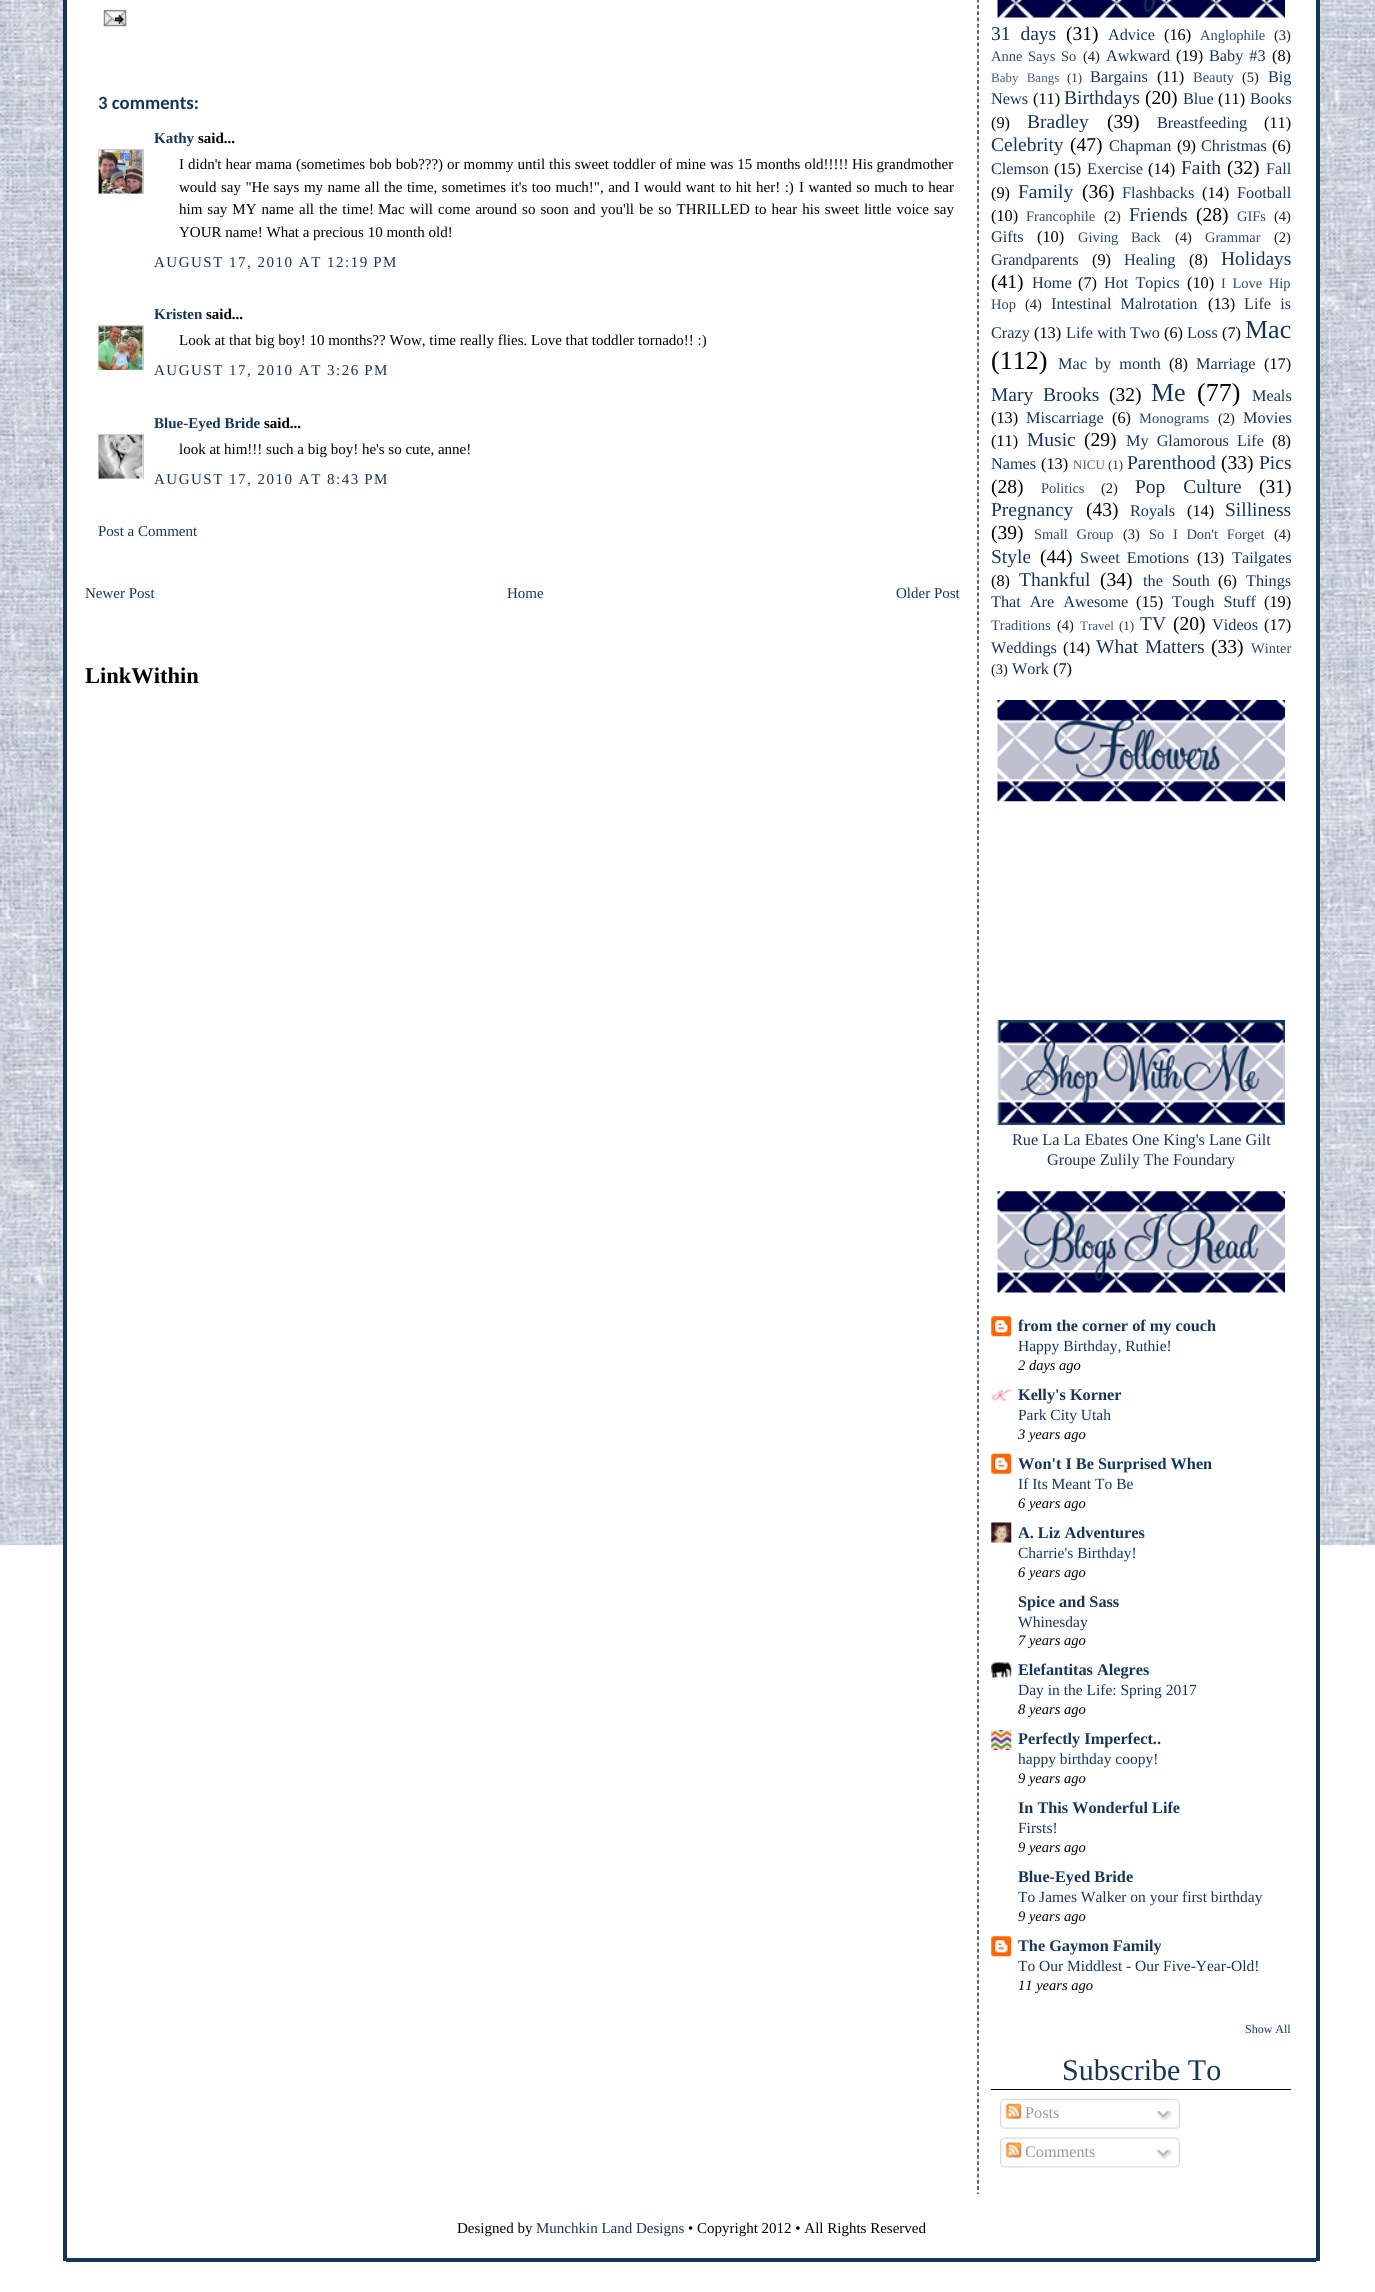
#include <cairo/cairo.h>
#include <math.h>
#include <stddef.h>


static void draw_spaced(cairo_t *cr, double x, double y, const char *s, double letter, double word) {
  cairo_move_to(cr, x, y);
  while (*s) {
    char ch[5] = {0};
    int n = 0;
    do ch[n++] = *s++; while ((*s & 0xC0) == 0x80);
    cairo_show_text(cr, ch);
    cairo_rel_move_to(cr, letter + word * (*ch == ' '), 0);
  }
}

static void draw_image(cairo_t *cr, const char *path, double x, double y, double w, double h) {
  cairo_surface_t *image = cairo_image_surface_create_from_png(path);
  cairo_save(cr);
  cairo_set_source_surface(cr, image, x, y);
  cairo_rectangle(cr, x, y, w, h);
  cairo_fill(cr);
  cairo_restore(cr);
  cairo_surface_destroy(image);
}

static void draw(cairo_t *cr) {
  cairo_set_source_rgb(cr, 1, 1, 1);
  cairo_paint(cr);
  draw_image(cr, "images/1.png", 0, 0, 1375, 1546);
  cairo_set_source_rgb(cr, 1, 1, 1);
  cairo_rectangle(cr, 67, 0, 1249, 1546);
  cairo_fill(cr);
  cairo_set_source_rgb(cr, 23 / 255.0, 53 / 255.0, 89 / 255.0);
  cairo_rectangle(cr, 1316, 0, 4, 2261);
  cairo_fill(cr);
  cairo_rectangle(cr, 63, 0, 4, 2261);
  cairo_fill(cr);
  draw_image(cr, "images/2.png", 103, 10, 24, 17);
  cairo_save(cr);
  cairo_rectangle(cr, 98, 149, 46, 45);
  cairo_clip(cr);
  cairo_rectangle(cr, 98.5, 149.5, 45, 45);
  cairo_set_source_rgb(cr, 204 / 255.0, 204 / 255.0, 204 / 255.0);
  cairo_set_line_width(cr, 1);
  cairo_stroke(cr);
  cairo_restore(cr);
  draw_image(cr, "images/3.png", 98, 150, 45, 44);
  cairo_save(cr);
  cairo_rectangle(cr, 98, 325, 46, 45);
  cairo_clip(cr);
  cairo_rectangle(cr, 98.5, 325.5, 45, 45);
  cairo_set_source_rgb(cr, 204 / 255.0, 204 / 255.0, 204 / 255.0);
  cairo_set_line_width(cr, 1);
  cairo_stroke(cr);
  cairo_restore(cr);
  draw_image(cr, "images/4.png", 98, 326, 45, 44);
  cairo_save(cr);
  cairo_rectangle(cr, 98, 434, 46, 45);
  cairo_clip(cr);
  cairo_rectangle(cr, 98.5, 434.5, 45, 45);
  cairo_set_source_rgb(cr, 204 / 255.0, 204 / 255.0, 204 / 255.0);
  cairo_set_line_width(cr, 1);
  cairo_stroke(cr);
  cairo_restore(cr);
  draw_image(cr, "images/5.png", 98, 435, 45, 44);
  cairo_new_path(cr);
  cairo_move_to(cr, 978, -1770);
  cairo_line_to(cr, 978, 2194);
  cairo_set_source_rgb(cr, 0, 0, 0);
  cairo_set_line_width(cr, 1.2);
  cairo_set_dash(cr, (double[]){3.75, 2.5}, 2, 0);
  cairo_stroke(cr);
  draw_image(cr, "images/6.png", 997, 0, 288, 18);
  draw_image(cr, "images/7.png", 997, 700, 288, 102);
  draw_image(cr, "images/8.png", 997, 1020, 288, 105);
  draw_image(cr, "images/9.png", 997, 1191, 288, 102);
  draw_image(cr, "images/10.png", 991, 1316, 21, 21);
  draw_image(cr, "images/11.png", 991, 1388, 21, 16);
  draw_image(cr, "images/12.png", 991, 1453, 21, 21);
  draw_image(cr, "images/13.png", 991, 1522, 21, 21);
  draw_image(cr, "images/14.png", 991, 1660, 21, 20);
  draw_image(cr, "images/15.png", 991, 1730, 21, 20);
  draw_image(cr, "images/16.png", 991, 1936, 21, 21);
  cairo_rectangle(cr, 991, 2089, 300, 1);
  cairo_fill(cr);
  draw_image(cr, "images/17.png", 1000, 2098, 180, 27);
  draw_image(cr, "images/18.png", 1006, 2103, 16, 16);
  draw_image(cr, "images/19.png", 1156, 2110, 17, 11);
  draw_image(cr, "images/20.png", 1000, 2125, 180, 4);
  draw_image(cr, "images/21.png", 1000, 2137, 180, 27);
  draw_image(cr, "images/22.png", 1006, 2142, 16, 16);
  draw_image(cr, "images/23.png", 1156, 2149, 17, 11);
  draw_image(cr, "images/24.png", 1000, 2163, 180, 5);
  cairo_set_source_rgb(cr, 23 / 255.0, 53 / 255.0, 89 / 255.0);
  cairo_rectangle(cr, 66, 2258, 1250, 4);
  cairo_fill(cr);
  cairo_select_font_face(cr, "Carlito", CAIRO_FONT_SLANT_NORMAL, CAIRO_FONT_WEIGHT_BOLD);
  cairo_set_font_size(cr, 18.75);
  cairo_move_to(cr, 98, 109);
  cairo_show_text(cr, "3 comments:");
  cairo_select_font_face(cr, "Liberation Serif", CAIRO_FONT_SLANT_NORMAL, CAIRO_FONT_WEIGHT_BOLD);
  cairo_set_font_size(cr, 15);
  cairo_move_to(cr, 154, 143);
  cairo_show_text(cr, "Kathy");
  cairo_set_source_rgb(cr, 0, 0, 0);
  cairo_move_to(cr, 198, 143);
  cairo_show_text(cr, "said...");
  cairo_select_font_face(cr, "Liberation Serif", CAIRO_FONT_SLANT_NORMAL, CAIRO_FONT_WEIGHT_NORMAL);
  draw_spaced(cr, 179, 169, "I didn't hear mama (sometimes bob bob?\077?) or mommy until this sweet toddler of mine was 15 months old!!!!!", 0, 0.25);
  cairo_move_to(cr, 852, 169);
  cairo_show_text(cr, "His grandmother");
  draw_spaced(cr, 179, 192, "would say \"He says my name all the time, sometimes it's too much!\", and I would want to hit her! :)", 0, 0.75);
  draw_spaced(cr, 799, 192, "I wanted so much to hear", 0, 0.75);
  draw_spaced(cr, 179, 214, "him say MY name all the time!", 0, 1.25);
  draw_spaced(cr, 378, 214, "Mac will come around so soon and you'll be so THRILLED to hear his sweet little voice say", 0, 1.25);
  cairo_move_to(cr, 179, 237);
  cairo_show_text(cr, "YOUR name! What a precious 10 month old!");
  cairo_set_source_rgb(cr, 23 / 255.0, 53 / 255.0, 89 / 255.0);
  draw_spaced(cr, 154, 267, "AUGUST 17, 2010 AT 12:19 PM", 1.5, 0);
  cairo_select_font_face(cr, "Liberation Serif", CAIRO_FONT_SLANT_NORMAL, CAIRO_FONT_WEIGHT_BOLD);
  cairo_move_to(cr, 154, 319);
  cairo_show_text(cr, "Kristen");
  cairo_set_source_rgb(cr, 0, 0, 0);
  cairo_move_to(cr, 206, 319);
  cairo_show_text(cr, "said...");
  cairo_select_font_face(cr, "Liberation Serif", CAIRO_FONT_SLANT_NORMAL, CAIRO_FONT_WEIGHT_NORMAL);
  cairo_move_to(cr, 179, 345);
  cairo_show_text(cr, "Look at that big boy! 10 months?\077 Wow, time really flies. Love that toddler tornado!! :)");
  cairo_set_source_rgb(cr, 23 / 255.0, 53 / 255.0, 89 / 255.0);
  draw_spaced(cr, 154, 375, "AUGUST 17, 2010 AT 3:26 PM", 1.5, 0);
  cairo_select_font_face(cr, "Liberation Serif", CAIRO_FONT_SLANT_NORMAL, CAIRO_FONT_WEIGHT_BOLD);
  cairo_move_to(cr, 154, 428);
  cairo_show_text(cr, "Blue-Eyed Bride");
  cairo_set_source_rgb(cr, 0, 0, 0);
  cairo_move_to(cr, 264, 428);
  cairo_show_text(cr, "said...");
  cairo_select_font_face(cr, "Liberation Serif", CAIRO_FONT_SLANT_NORMAL, CAIRO_FONT_WEIGHT_NORMAL);
  cairo_move_to(cr, 179, 454);
  cairo_show_text(cr, "look at him!!! such a big boy! he's so cute, anne!");
  cairo_set_source_rgb(cr, 23 / 255.0, 53 / 255.0, 89 / 255.0);
  draw_spaced(cr, 154, 484, "AUGUST 17, 2010 AT 8:43 PM", 1.5, 0);
  cairo_move_to(cr, 98, 536);
  cairo_show_text(cr, "Post a Comment");
  cairo_move_to(cr, 85, 598);
  cairo_show_text(cr, "Newer Post");
  cairo_move_to(cr, 507, 598);
  cairo_show_text(cr, "Home");
  cairo_move_to(cr, 896, 598);
  cairo_show_text(cr, "Older Post");
  cairo_select_font_face(cr, "Liberation Serif", CAIRO_FONT_SLANT_NORMAL, CAIRO_FONT_WEIGHT_BOLD);
  cairo_set_font_size(cr, 22.5);
  cairo_set_source_rgb(cr, 0, 0, 0);
  cairo_move_to(cr, 85, 683);
  cairo_show_text(cr, "LinkWithin");
  cairo_select_font_face(cr, "Liberation Serif", CAIRO_FONT_SLANT_NORMAL, CAIRO_FONT_WEIGHT_NORMAL);
  cairo_set_font_size(cr, 19.5);
  cairo_set_source_rgb(cr, 23 / 255.0, 53 / 255.0, 89 / 255.0);
  draw_spaced(cr, 991, 40, "31 days", 0, 5);
  cairo_set_source_rgb(cr, 0, 0, 0);
  cairo_move_to(cr, 1066, 40);
  cairo_show_text(cr, "(31)");
  cairo_set_font_size(cr, 16.25);
  cairo_set_source_rgb(cr, 23 / 255.0, 53 / 255.0, 89 / 255.0);
  cairo_move_to(cr, 1108, 40);
  cairo_show_text(cr, "Advice");
  cairo_set_source_rgb(cr, 0, 0, 0);
  cairo_move_to(cr, 1164, 40);
  cairo_show_text(cr, "(16)");
  cairo_set_font_size(cr, 14.5);
  cairo_set_source_rgb(cr, 46 / 255.0, 73 / 255.0, 106 / 255.0);
  cairo_move_to(cr, 1200, 40);
  cairo_show_text(cr, "Anglophile");
  cairo_set_source_rgb(cr, 26 / 255.0, 26 / 255.0, 26 / 255.0);
  cairo_move_to(cr, 1274, 40);
  cairo_show_text(cr, "(3)");
  cairo_set_source_rgb(cr, 46 / 255.0, 73 / 255.0, 106 / 255.0);
  draw_spaced(cr, 991, 61, "Anne Says So", 0, 2);
  cairo_set_source_rgb(cr, 26 / 255.0, 26 / 255.0, 26 / 255.0);
  cairo_move_to(cr, 1083, 61);
  cairo_show_text(cr, "(4)");
  cairo_set_font_size(cr, 16.25);
  cairo_set_source_rgb(cr, 23 / 255.0, 53 / 255.0, 89 / 255.0);
  cairo_move_to(cr, 1106, 61);
  cairo_show_text(cr, "Awkward");
  cairo_set_source_rgb(cr, 0, 0, 0);
  cairo_move_to(cr, 1176, 61);
  cairo_show_text(cr, "(19)");
  cairo_set_source_rgb(cr, 23 / 255.0, 53 / 255.0, 89 / 255.0);
  draw_spaced(cr, 1209, 61, "Baby #3", 0, 2);
  cairo_set_source_rgb(cr, 0, 0, 0);
  cairo_move_to(cr, 1272, 61);
  cairo_show_text(cr, "(8)");
  cairo_set_font_size(cr, 13);
  cairo_set_source_rgb(cr, 69 / 255.0, 93 / 255.0, 122 / 255.0);
  draw_spaced(cr, 991, 82, "Baby Bangs", 0, 5);
  cairo_set_source_rgb(cr, 51 / 255.0, 51 / 255.0, 51 / 255.0);
  cairo_move_to(cr, 1067, 82);
  cairo_show_text(cr, "(1)");
  cairo_set_font_size(cr, 16.25);
  cairo_set_source_rgb(cr, 23 / 255.0, 53 / 255.0, 89 / 255.0);
  cairo_move_to(cr, 1090, 82);
  cairo_show_text(cr, "Bargains");
  cairo_set_source_rgb(cr, 0, 0, 0);
  cairo_move_to(cr, 1157, 82);
  cairo_show_text(cr, "(11)");
  cairo_set_font_size(cr, 14.5);
  cairo_set_source_rgb(cr, 46 / 255.0, 73 / 255.0, 106 / 255.0);
  cairo_move_to(cr, 1193, 82);
  cairo_show_text(cr, "Beauty");
  cairo_set_source_rgb(cr, 26 / 255.0, 26 / 255.0, 26 / 255.0);
  cairo_move_to(cr, 1242, 82);
  cairo_show_text(cr, "(5)");
  cairo_set_font_size(cr, 16.25);
  cairo_set_source_rgb(cr, 23 / 255.0, 53 / 255.0, 89 / 255.0);
  cairo_move_to(cr, 1268, 82);
  cairo_show_text(cr, "Big");
  cairo_move_to(cr, 991, 104);
  cairo_show_text(cr, "News");
  cairo_set_source_rgb(cr, 0, 0, 0);
  cairo_move_to(cr, 1033, 104);
  cairo_show_text(cr, "(11)");
  cairo_set_font_size(cr, 19.5);
  cairo_set_source_rgb(cr, 23 / 255.0, 53 / 255.0, 89 / 255.0);
  cairo_move_to(cr, 1064, 104);
  cairo_show_text(cr, "Birthdays");
  cairo_set_source_rgb(cr, 0, 0, 0);
  cairo_move_to(cr, 1145, 104);
  cairo_show_text(cr, "(20)");
  cairo_set_font_size(cr, 16.25);
  cairo_set_source_rgb(cr, 23 / 255.0, 53 / 255.0, 89 / 255.0);
  cairo_move_to(cr, 1183, 104);
  cairo_show_text(cr, "Blue");
  cairo_set_source_rgb(cr, 0, 0, 0);
  cairo_move_to(cr, 1218, 104);
  cairo_show_text(cr, "(11)");
  cairo_set_source_rgb(cr, 23 / 255.0, 53 / 255.0, 89 / 255.0);
  cairo_move_to(cr, 1250, 104);
  cairo_show_text(cr, "Books");
  cairo_set_source_rgb(cr, 0, 0, 0);
  cairo_move_to(cr, 991, 128);
  cairo_show_text(cr, "(9)");
  cairo_set_font_size(cr, 19.5);
  cairo_set_source_rgb(cr, 23 / 255.0, 53 / 255.0, 89 / 255.0);
  cairo_move_to(cr, 1027, 128);
  cairo_show_text(cr, "Bradley");
  cairo_set_source_rgb(cr, 0, 0, 0);
  cairo_move_to(cr, 1107, 128);
  cairo_show_text(cr, "(39)");
  cairo_set_font_size(cr, 16.25);
  cairo_set_source_rgb(cr, 23 / 255.0, 53 / 255.0, 89 / 255.0);
  cairo_move_to(cr, 1157, 128);
  cairo_show_text(cr, "Breastfeeding");
  cairo_set_source_rgb(cr, 0, 0, 0);
  cairo_move_to(cr, 1264, 128);
  cairo_show_text(cr, "(11)");
  cairo_set_font_size(cr, 19.5);
  cairo_set_source_rgb(cr, 23 / 255.0, 53 / 255.0, 89 / 255.0);
  cairo_move_to(cr, 991, 151);
  cairo_show_text(cr, "Celebrity");
  cairo_set_source_rgb(cr, 0, 0, 0);
  cairo_move_to(cr, 1070, 151);
  cairo_show_text(cr, "(47)");
  cairo_set_font_size(cr, 16.25);
  cairo_set_source_rgb(cr, 23 / 255.0, 53 / 255.0, 89 / 255.0);
  cairo_move_to(cr, 1109, 151);
  cairo_show_text(cr, "Chapman");
  cairo_set_source_rgb(cr, 0, 0, 0);
  cairo_move_to(cr, 1177, 151);
  cairo_show_text(cr, "(9)");
  cairo_set_source_rgb(cr, 23 / 255.0, 53 / 255.0, 89 / 255.0);
  cairo_move_to(cr, 1201, 151);
  cairo_show_text(cr, "Christmas");
  cairo_set_source_rgb(cr, 0, 0, 0);
  cairo_move_to(cr, 1272, 151);
  cairo_show_text(cr, "(6)");
  cairo_set_source_rgb(cr, 23 / 255.0, 53 / 255.0, 89 / 255.0);
  cairo_move_to(cr, 991, 174);
  cairo_show_text(cr, "Clemson");
  cairo_set_source_rgb(cr, 0, 0, 0);
  cairo_move_to(cr, 1054, 174);
  cairo_show_text(cr, "(15)");
  cairo_set_source_rgb(cr, 23 / 255.0, 53 / 255.0, 89 / 255.0);
  cairo_move_to(cr, 1087, 174);
  cairo_show_text(cr, "Exercise");
  cairo_set_source_rgb(cr, 0, 0, 0);
  cairo_move_to(cr, 1148, 174);
  cairo_show_text(cr, "(14)");
  cairo_set_font_size(cr, 19.5);
  cairo_set_source_rgb(cr, 23 / 255.0, 53 / 255.0, 89 / 255.0);
  cairo_move_to(cr, 1181, 174);
  cairo_show_text(cr, "Faith");
  cairo_set_source_rgb(cr, 0, 0, 0);
  cairo_move_to(cr, 1227, 174);
  cairo_show_text(cr, "(32)");
  cairo_set_font_size(cr, 16.25);
  cairo_set_source_rgb(cr, 23 / 255.0, 53 / 255.0, 89 / 255.0);
  cairo_move_to(cr, 1266, 174);
  cairo_show_text(cr, "Fall");
  cairo_set_source_rgb(cr, 0, 0, 0);
  cairo_move_to(cr, 991, 198);
  cairo_show_text(cr, "(9)");
  cairo_set_font_size(cr, 19.5);
  cairo_set_source_rgb(cr, 23 / 255.0, 53 / 255.0, 89 / 255.0);
  cairo_move_to(cr, 1018, 198);
  cairo_show_text(cr, "Family");
  cairo_set_source_rgb(cr, 0, 0, 0);
  cairo_move_to(cr, 1082, 198);
  cairo_show_text(cr, "(36)");
  cairo_set_font_size(cr, 16.25);
  cairo_set_source_rgb(cr, 23 / 255.0, 53 / 255.0, 89 / 255.0);
  cairo_move_to(cr, 1122, 198);
  cairo_show_text(cr, "Flashbacks");
  cairo_set_source_rgb(cr, 0, 0, 0);
  cairo_move_to(cr, 1202, 198);
  cairo_show_text(cr, "(14)");
  cairo_set_source_rgb(cr, 23 / 255.0, 53 / 255.0, 89 / 255.0);
  cairo_move_to(cr, 1237, 198);
  cairo_show_text(cr, "Football");
  cairo_set_source_rgb(cr, 0, 0, 0);
  cairo_move_to(cr, 991, 221);
  cairo_show_text(cr, "(10)");
  cairo_set_font_size(cr, 14.5);
  cairo_set_source_rgb(cr, 46 / 255.0, 73 / 255.0, 106 / 255.0);
  cairo_move_to(cr, 1026, 221);
  cairo_show_text(cr, "Francophile");
  cairo_set_source_rgb(cr, 26 / 255.0, 26 / 255.0, 26 / 255.0);
  cairo_move_to(cr, 1104, 221);
  cairo_show_text(cr, "(2)");
  cairo_set_font_size(cr, 19.5);
  cairo_set_source_rgb(cr, 23 / 255.0, 53 / 255.0, 89 / 255.0);
  cairo_move_to(cr, 1129, 221);
  cairo_show_text(cr, "Friends");
  cairo_set_source_rgb(cr, 0, 0, 0);
  cairo_move_to(cr, 1196, 221);
  cairo_show_text(cr, "(28)");
  cairo_set_font_size(cr, 14.5);
  cairo_set_source_rgb(cr, 46 / 255.0, 73 / 255.0, 106 / 255.0);
  cairo_move_to(cr, 1237, 221);
  cairo_show_text(cr, "GIFs");
  cairo_set_source_rgb(cr, 26 / 255.0, 26 / 255.0, 26 / 255.0);
  cairo_move_to(cr, 1274, 221);
  cairo_show_text(cr, "(4)");
  cairo_set_font_size(cr, 16.25);
  cairo_set_source_rgb(cr, 23 / 255.0, 53 / 255.0, 89 / 255.0);
  cairo_move_to(cr, 991, 242);
  cairo_show_text(cr, "Gifts");
  cairo_set_source_rgb(cr, 0, 0, 0);
  cairo_move_to(cr, 1037, 242);
  cairo_show_text(cr, "(10)");
  cairo_set_font_size(cr, 14.5);
  cairo_set_source_rgb(cr, 46 / 255.0, 73 / 255.0, 106 / 255.0);
  draw_spaced(cr, 1078, 242, "Giving Back", 0, 9);
  cairo_set_source_rgb(cr, 26 / 255.0, 26 / 255.0, 26 / 255.0);
  cairo_move_to(cr, 1175, 242);
  cairo_show_text(cr, "(4)");
  cairo_set_source_rgb(cr, 46 / 255.0, 73 / 255.0, 106 / 255.0);
  cairo_move_to(cr, 1205, 242);
  cairo_show_text(cr, "Grammar");
  cairo_set_source_rgb(cr, 26 / 255.0, 26 / 255.0, 26 / 255.0);
  cairo_move_to(cr, 1274, 242);
  cairo_show_text(cr, "(2)");
  cairo_set_font_size(cr, 16.25);
  cairo_set_source_rgb(cr, 23 / 255.0, 53 / 255.0, 89 / 255.0);
  cairo_move_to(cr, 991, 265);
  cairo_show_text(cr, "Grandparents");
  cairo_set_source_rgb(cr, 0, 0, 0);
  cairo_move_to(cr, 1092, 265);
  cairo_show_text(cr, "(9)");
  cairo_set_source_rgb(cr, 23 / 255.0, 53 / 255.0, 89 / 255.0);
  cairo_move_to(cr, 1124, 265);
  cairo_show_text(cr, "Healing");
  cairo_set_source_rgb(cr, 0, 0, 0);
  cairo_move_to(cr, 1189, 265);
  cairo_show_text(cr, "(8)");
  cairo_set_font_size(cr, 19.5);
  cairo_set_source_rgb(cr, 23 / 255.0, 53 / 255.0, 89 / 255.0);
  cairo_move_to(cr, 1221, 265);
  cairo_show_text(cr, "Holidays");
  cairo_set_source_rgb(cr, 0, 0, 0);
  cairo_move_to(cr, 991, 288);
  cairo_show_text(cr, "(41)");
  cairo_set_font_size(cr, 16.25);
  cairo_set_source_rgb(cr, 23 / 255.0, 53 / 255.0, 89 / 255.0);
  cairo_move_to(cr, 1032, 288);
  cairo_show_text(cr, "Home");
  cairo_set_source_rgb(cr, 0, 0, 0);
  cairo_move_to(cr, 1078, 288);
  cairo_show_text(cr, "(7)");
  cairo_set_source_rgb(cr, 23 / 255.0, 53 / 255.0, 89 / 255.0);
  draw_spaced(cr, 1104, 288, "Hot Topics", 0, 3);
  cairo_set_source_rgb(cr, 0, 0, 0);
  cairo_move_to(cr, 1187, 288);
  cairo_show_text(cr, "(10)");
  cairo_set_font_size(cr, 14.5);
  cairo_set_source_rgb(cr, 46 / 255.0, 73 / 255.0, 106 / 255.0);
  draw_spaced(cr, 1221, 288, "I Love Hip", 0, 3);
  cairo_move_to(cr, 991, 309);
  cairo_show_text(cr, "Hop");
  cairo_set_source_rgb(cr, 26 / 255.0, 26 / 255.0, 26 / 255.0);
  cairo_move_to(cr, 1025, 309);
  cairo_show_text(cr, "(4)");
  cairo_set_font_size(cr, 16.25);
  cairo_set_source_rgb(cr, 23 / 255.0, 53 / 255.0, 89 / 255.0);
  draw_spaced(cr, 1051, 309, "Intestinal Malrotation", 0, 5);
  cairo_set_source_rgb(cr, 0, 0, 0);
  cairo_move_to(cr, 1208, 309);
  cairo_show_text(cr, "(13)");
  cairo_set_source_rgb(cr, 23 / 255.0, 53 / 255.0, 89 / 255.0);
  draw_spaced(cr, 1244, 309, "Life is", 0, 5);
  cairo_move_to(cr, 991, 338);
  cairo_show_text(cr, "Crazy");
  cairo_set_source_rgb(cr, 0, 0, 0);
  cairo_move_to(cr, 1034, 338);
  cairo_show_text(cr, "(13)");
  cairo_set_source_rgb(cr, 23 / 255.0, 53 / 255.0, 89 / 255.0);
  cairo_move_to(cr, 1066, 338);
  cairo_show_text(cr, "Life with Two");
  cairo_set_source_rgb(cr, 0, 0, 0);
  cairo_move_to(cr, 1164, 338);
  cairo_show_text(cr, "(6)");
  cairo_set_source_rgb(cr, 23 / 255.0, 53 / 255.0, 89 / 255.0);
  cairo_move_to(cr, 1187, 338);
  cairo_show_text(cr, "Loss");
  cairo_set_source_rgb(cr, 0, 0, 0);
  cairo_move_to(cr, 1222, 338);
  cairo_show_text(cr, "(7)");
  cairo_set_font_size(cr, 26);
  cairo_set_source_rgb(cr, 23 / 255.0, 53 / 255.0, 89 / 255.0);
  cairo_move_to(cr, 1245, 338);
  cairo_show_text(cr, "Mac");
  cairo_set_source_rgb(cr, 0, 0, 0);
  cairo_move_to(cr, 991, 369);
  cairo_show_text(cr, "(112)");
  cairo_set_font_size(cr, 16.25);
  cairo_set_source_rgb(cr, 23 / 255.0, 53 / 255.0, 89 / 255.0);
  draw_spaced(cr, 1058, 369, "Mac by month", 0, 4);
  cairo_set_source_rgb(cr, 0, 0, 0);
  cairo_move_to(cr, 1169, 369);
  cairo_show_text(cr, "(8)");
  cairo_set_source_rgb(cr, 23 / 255.0, 53 / 255.0, 89 / 255.0);
  cairo_move_to(cr, 1196, 369);
  cairo_show_text(cr, "Marriage");
  cairo_set_source_rgb(cr, 0, 0, 0);
  cairo_move_to(cr, 1264, 369);
  cairo_show_text(cr, "(17)");
  cairo_set_font_size(cr, 19.5);
  cairo_set_source_rgb(cr, 23 / 255.0, 53 / 255.0, 89 / 255.0);
  draw_spaced(cr, 991, 401, "Mary Brooks", 0, 5);
  cairo_set_source_rgb(cr, 0, 0, 0);
  cairo_move_to(cr, 1109, 401);
  cairo_show_text(cr, "(32)");
  cairo_set_font_size(cr, 26);
  cairo_set_source_rgb(cr, 23 / 255.0, 53 / 255.0, 89 / 255.0);
  cairo_move_to(cr, 1151, 401);
  cairo_show_text(cr, "Me");
  cairo_set_source_rgb(cr, 0, 0, 0);
  cairo_move_to(cr, 1197, 401);
  cairo_show_text(cr, "(77)");
  cairo_set_font_size(cr, 16.25);
  cairo_set_source_rgb(cr, 23 / 255.0, 53 / 255.0, 89 / 255.0);
  cairo_move_to(cr, 1252, 401);
  cairo_show_text(cr, "Meals");
  cairo_set_source_rgb(cr, 0, 0, 0);
  cairo_move_to(cr, 991, 423);
  cairo_show_text(cr, "(13)");
  cairo_set_source_rgb(cr, 23 / 255.0, 53 / 255.0, 89 / 255.0);
  cairo_move_to(cr, 1026, 423);
  cairo_show_text(cr, "Miscarriage");
  cairo_set_source_rgb(cr, 0, 0, 0);
  cairo_move_to(cr, 1112, 423);
  cairo_show_text(cr, "(6)");
  cairo_set_font_size(cr, 14.5);
  cairo_set_source_rgb(cr, 46 / 255.0, 73 / 255.0, 106 / 255.0);
  cairo_move_to(cr, 1139, 423);
  cairo_show_text(cr, "Monograms");
  cairo_set_source_rgb(cr, 26 / 255.0, 26 / 255.0, 26 / 255.0);
  cairo_move_to(cr, 1218, 423);
  cairo_show_text(cr, "(2)");
  cairo_set_font_size(cr, 16.25);
  cairo_set_source_rgb(cr, 23 / 255.0, 53 / 255.0, 89 / 255.0);
  cairo_move_to(cr, 1243, 423);
  cairo_show_text(cr, "Movies");
  cairo_set_source_rgb(cr, 0, 0, 0);
  cairo_move_to(cr, 991, 446);
  cairo_show_text(cr, "(11)");
  cairo_set_font_size(cr, 19.5);
  cairo_set_source_rgb(cr, 23 / 255.0, 53 / 255.0, 89 / 255.0);
  cairo_move_to(cr, 1027, 446);
  cairo_show_text(cr, "Music");
  cairo_set_source_rgb(cr, 0, 0, 0);
  cairo_move_to(cr, 1084, 446);
  cairo_show_text(cr, "(29)");
  cairo_set_font_size(cr, 16.25);
  cairo_set_source_rgb(cr, 23 / 255.0, 53 / 255.0, 89 / 255.0);
  draw_spaced(cr, 1126, 446, "My Glamorous Life", 0, 4);
  cairo_set_source_rgb(cr, 0, 0, 0);
  cairo_move_to(cr, 1272, 446);
  cairo_show_text(cr, "(8)");
  cairo_set_source_rgb(cr, 23 / 255.0, 53 / 255.0, 89 / 255.0);
  cairo_move_to(cr, 991, 469);
  cairo_show_text(cr, "Names");
  cairo_set_source_rgb(cr, 0, 0, 0);
  cairo_move_to(cr, 1041, 469);
  cairo_show_text(cr, "(13)");
  cairo_set_font_size(cr, 13);
  cairo_set_source_rgb(cr, 69 / 255.0, 93 / 255.0, 122 / 255.0);
  cairo_move_to(cr, 1073, 469);
  cairo_show_text(cr, "NICU");
  cairo_set_source_rgb(cr, 51 / 255.0, 51 / 255.0, 51 / 255.0);
  cairo_move_to(cr, 1108, 469);
  cairo_show_text(cr, "(1)");
  cairo_set_font_size(cr, 19.5);
  cairo_set_source_rgb(cr, 23 / 255.0, 53 / 255.0, 89 / 255.0);
  cairo_move_to(cr, 1127, 469);
  cairo_show_text(cr, "Parenthood");
  cairo_set_source_rgb(cr, 0, 0, 0);
  cairo_move_to(cr, 1221, 469);
  cairo_show_text(cr, "(33)");
  cairo_set_source_rgb(cr, 23 / 255.0, 53 / 255.0, 89 / 255.0);
  cairo_move_to(cr, 1259, 469);
  cairo_show_text(cr, "Pics");
  cairo_set_source_rgb(cr, 0, 0, 0);
  cairo_move_to(cr, 991, 493);
  cairo_show_text(cr, "(28)");
  cairo_set_font_size(cr, 14.5);
  cairo_set_source_rgb(cr, 46 / 255.0, 73 / 255.0, 106 / 255.0);
  cairo_move_to(cr, 1041, 493);
  cairo_show_text(cr, "Politics");
  cairo_set_source_rgb(cr, 26 / 255.0, 26 / 255.0, 26 / 255.0);
  cairo_move_to(cr, 1101, 493);
  cairo_show_text(cr, "(2)");
  cairo_set_font_size(cr, 19.5);
  cairo_set_source_rgb(cr, 23 / 255.0, 53 / 255.0, 89 / 255.0);
  draw_spaced(cr, 1135, 493, "Pop Culture", 0, 13);
  cairo_set_source_rgb(cr, 0, 0, 0);
  cairo_move_to(cr, 1259, 493);
  cairo_show_text(cr, "(31)");
  cairo_set_source_rgb(cr, 23 / 255.0, 53 / 255.0, 89 / 255.0);
  cairo_move_to(cr, 991, 516);
  cairo_show_text(cr, "Pregnancy");
  cairo_set_source_rgb(cr, 0, 0, 0);
  cairo_move_to(cr, 1086, 516);
  cairo_show_text(cr, "(43)");
  cairo_set_font_size(cr, 16.25);
  cairo_set_source_rgb(cr, 23 / 255.0, 53 / 255.0, 89 / 255.0);
  cairo_move_to(cr, 1130, 516);
  cairo_show_text(cr, "Royals");
  cairo_set_source_rgb(cr, 0, 0, 0);
  cairo_move_to(cr, 1187, 516);
  cairo_show_text(cr, "(14)");
  cairo_set_font_size(cr, 19.5);
  cairo_set_source_rgb(cr, 23 / 255.0, 53 / 255.0, 89 / 255.0);
  cairo_move_to(cr, 1225, 516);
  cairo_show_text(cr, "Silliness");
  cairo_set_source_rgb(cr, 0, 0, 0);
  cairo_move_to(cr, 991, 539);
  cairo_show_text(cr, "(39)");
  cairo_set_font_size(cr, 14.5);
  cairo_set_source_rgb(cr, 46 / 255.0, 73 / 255.0, 106 / 255.0);
  draw_spaced(cr, 1034, 539, "Small Group", 0, 5);
  cairo_set_source_rgb(cr, 26 / 255.0, 26 / 255.0, 26 / 255.0);
  cairo_move_to(cr, 1123, 539);
  cairo_show_text(cr, "(3)");
  cairo_set_source_rgb(cr, 46 / 255.0, 73 / 255.0, 106 / 255.0);
  draw_spaced(cr, 1149, 539, "So I Don't Forget", 0, 5);
  cairo_set_source_rgb(cr, 26 / 255.0, 26 / 255.0, 26 / 255.0);
  cairo_move_to(cr, 1274, 539);
  cairo_show_text(cr, "(4)");
  cairo_set_font_size(cr, 19.5);
  cairo_set_source_rgb(cr, 23 / 255.0, 53 / 255.0, 89 / 255.0);
  cairo_move_to(cr, 991, 563);
  cairo_show_text(cr, "Style");
  cairo_set_source_rgb(cr, 0, 0, 0);
  cairo_move_to(cr, 1040, 563);
  cairo_show_text(cr, "(44)");
  cairo_set_font_size(cr, 16.25);
  cairo_set_source_rgb(cr, 23 / 255.0, 53 / 255.0, 89 / 255.0);
  draw_spaced(cr, 1080, 563, "Sweet Emotions", 0, 3);
  cairo_set_source_rgb(cr, 0, 0, 0);
  cairo_move_to(cr, 1197, 563);
  cairo_show_text(cr, "(13)");
  cairo_set_source_rgb(cr, 23 / 255.0, 53 / 255.0, 89 / 255.0);
  cairo_move_to(cr, 1232, 563);
  cairo_show_text(cr, "Tailgates");
  cairo_set_source_rgb(cr, 0, 0, 0);
  cairo_move_to(cr, 991, 586);
  cairo_show_text(cr, "(8)");
  cairo_set_font_size(cr, 19.5);
  cairo_set_source_rgb(cr, 23 / 255.0, 53 / 255.0, 89 / 255.0);
  cairo_move_to(cr, 1019, 586);
  cairo_show_text(cr, "Thankful");
  cairo_set_source_rgb(cr, 0, 0, 0);
  cairo_move_to(cr, 1100, 586);
  cairo_show_text(cr, "(34)");
  cairo_set_font_size(cr, 16.25);
  cairo_set_source_rgb(cr, 23 / 255.0, 53 / 255.0, 89 / 255.0);
  draw_spaced(cr, 1143, 586, "the South", 0, 5);
  cairo_set_source_rgb(cr, 0, 0, 0);
  cairo_move_to(cr, 1218, 586);
  cairo_show_text(cr, "(6)");
  cairo_set_source_rgb(cr, 23 / 255.0, 53 / 255.0, 89 / 255.0);
  cairo_move_to(cr, 1246, 586);
  cairo_show_text(cr, "Things");
  draw_spaced(cr, 991, 607, "That Are Awesome", 0, 5);
  cairo_set_source_rgb(cr, 0, 0, 0);
  cairo_move_to(cr, 1136, 607);
  cairo_show_text(cr, "(15)");
  cairo_set_source_rgb(cr, 23 / 255.0, 53 / 255.0, 89 / 255.0);
  draw_spaced(cr, 1172, 607, "Tough Stuff", 0, 5);
  cairo_set_source_rgb(cr, 0, 0, 0);
  cairo_move_to(cr, 1264, 607);
  cairo_show_text(cr, "(19)");
  cairo_set_font_size(cr, 14.5);
  cairo_set_source_rgb(cr, 46 / 255.0, 73 / 255.0, 106 / 255.0);
  cairo_move_to(cr, 991, 630);
  cairo_show_text(cr, "Traditions");
  cairo_set_source_rgb(cr, 26 / 255.0, 26 / 255.0, 26 / 255.0);
  cairo_move_to(cr, 1057, 630);
  cairo_show_text(cr, "(4)");
  cairo_set_font_size(cr, 13);
  cairo_set_source_rgb(cr, 69 / 255.0, 93 / 255.0, 122 / 255.0);
  cairo_move_to(cr, 1080, 630);
  cairo_show_text(cr, "Travel");
  cairo_set_source_rgb(cr, 51 / 255.0, 51 / 255.0, 51 / 255.0);
  cairo_move_to(cr, 1119, 630);
  cairo_show_text(cr, "(1)");
  cairo_set_font_size(cr, 19.5);
  cairo_set_source_rgb(cr, 23 / 255.0, 53 / 255.0, 89 / 255.0);
  cairo_move_to(cr, 1140, 630);
  cairo_show_text(cr, "TV");
  cairo_set_source_rgb(cr, 0, 0, 0);
  cairo_move_to(cr, 1173, 630);
  cairo_show_text(cr, "(20)");
  cairo_set_font_size(cr, 16.25);
  cairo_set_source_rgb(cr, 23 / 255.0, 53 / 255.0, 89 / 255.0);
  cairo_move_to(cr, 1212, 630);
  cairo_show_text(cr, "Videos");
  cairo_set_source_rgb(cr, 0, 0, 0);
  cairo_move_to(cr, 1264, 630);
  cairo_show_text(cr, "(17)");
  cairo_set_source_rgb(cr, 23 / 255.0, 53 / 255.0, 89 / 255.0);
  cairo_move_to(cr, 991, 653);
  cairo_show_text(cr, "Weddings");
  cairo_set_source_rgb(cr, 0, 0, 0);
  cairo_move_to(cr, 1063, 653);
  cairo_show_text(cr, "(14)");
  cairo_set_font_size(cr, 19.5);
  cairo_set_source_rgb(cr, 23 / 255.0, 53 / 255.0, 89 / 255.0);
  draw_spaced(cr, 1096, 653, "What Matters", 0, 2);
  cairo_set_source_rgb(cr, 0, 0, 0);
  cairo_move_to(cr, 1211, 653);
  cairo_show_text(cr, "(33)");
  cairo_set_font_size(cr, 14.5);
  cairo_set_source_rgb(cr, 46 / 255.0, 73 / 255.0, 106 / 255.0);
  cairo_move_to(cr, 1251, 653);
  cairo_show_text(cr, "Winter");
  cairo_set_source_rgb(cr, 26 / 255.0, 26 / 255.0, 26 / 255.0);
  cairo_move_to(cr, 991, 674);
  cairo_show_text(cr, "(3)");
  cairo_set_font_size(cr, 16.25);
  cairo_set_source_rgb(cr, 23 / 255.0, 53 / 255.0, 89 / 255.0);
  cairo_move_to(cr, 1012, 674);
  cairo_show_text(cr, "Work");
  cairo_set_source_rgb(cr, 0, 0, 0);
  cairo_move_to(cr, 1053, 674);
  cairo_show_text(cr, "(7)");
  cairo_set_source_rgb(cr, 23 / 255.0, 53 / 255.0, 89 / 255.0);
  cairo_move_to(cr, 1012, 1145);
  cairo_show_text(cr, "Rue La La Ebates One King's Lane Gilt");
  cairo_move_to(cr, 1047, 1165);
  cairo_show_text(cr, "Groupe Zulily The Foundary");
  cairo_select_font_face(cr, "Liberation Serif", CAIRO_FONT_SLANT_NORMAL, CAIRO_FONT_WEIGHT_BOLD);
  cairo_move_to(cr, 1018, 1331);
  cairo_show_text(cr, "from the corner of my couch");
  cairo_select_font_face(cr, "Liberation Serif", CAIRO_FONT_SLANT_NORMAL, CAIRO_FONT_WEIGHT_NORMAL);
  cairo_set_font_size(cr, 15.5);
  cairo_move_to(cr, 1018, 1351);
  cairo_show_text(cr, "Happy Birthday, Ruthie!");
  cairo_select_font_face(cr, "Liberation Serif", CAIRO_FONT_SLANT_ITALIC, CAIRO_FONT_WEIGHT_NORMAL);
  cairo_set_font_size(cr, 14.5);
  cairo_set_source_rgb(cr, 0, 0, 0);
  cairo_move_to(cr, 1018, 1370);
  cairo_show_text(cr, "2 days ago");
  cairo_select_font_face(cr, "Liberation Serif", CAIRO_FONT_SLANT_NORMAL, CAIRO_FONT_WEIGHT_BOLD);
  cairo_set_font_size(cr, 16.25);
  cairo_set_source_rgb(cr, 23 / 255.0, 53 / 255.0, 89 / 255.0);
  cairo_move_to(cr, 1018, 1400);
  cairo_show_text(cr, "Kelly's Korner");
  cairo_select_font_face(cr, "Liberation Serif", CAIRO_FONT_SLANT_NORMAL, CAIRO_FONT_WEIGHT_NORMAL);
  cairo_set_font_size(cr, 15.5);
  cairo_move_to(cr, 1018, 1420);
  cairo_show_text(cr, "Park City Utah");
  cairo_select_font_face(cr, "Liberation Serif", CAIRO_FONT_SLANT_ITALIC, CAIRO_FONT_WEIGHT_NORMAL);
  cairo_set_font_size(cr, 14.5);
  cairo_set_source_rgb(cr, 0, 0, 0);
  cairo_move_to(cr, 1018, 1439);
  cairo_show_text(cr, "3 years ago");
  cairo_select_font_face(cr, "Liberation Serif", CAIRO_FONT_SLANT_NORMAL, CAIRO_FONT_WEIGHT_BOLD);
  cairo_set_font_size(cr, 16.25);
  cairo_set_source_rgb(cr, 23 / 255.0, 53 / 255.0, 89 / 255.0);
  cairo_move_to(cr, 1018, 1469);
  cairo_show_text(cr, "Won't I Be Surprised When");
  cairo_select_font_face(cr, "Liberation Serif", CAIRO_FONT_SLANT_NORMAL, CAIRO_FONT_WEIGHT_NORMAL);
  cairo_set_font_size(cr, 15.5);
  cairo_move_to(cr, 1018, 1489);
  cairo_show_text(cr, "If Its Meant To Be");
  cairo_select_font_face(cr, "Liberation Serif", CAIRO_FONT_SLANT_ITALIC, CAIRO_FONT_WEIGHT_NORMAL);
  cairo_set_font_size(cr, 14.5);
  cairo_set_source_rgb(cr, 0, 0, 0);
  cairo_move_to(cr, 1018, 1508);
  cairo_show_text(cr, "6 years ago");
  cairo_select_font_face(cr, "Liberation Serif", CAIRO_FONT_SLANT_NORMAL, CAIRO_FONT_WEIGHT_BOLD);
  cairo_set_font_size(cr, 16.25);
  cairo_set_source_rgb(cr, 23 / 255.0, 53 / 255.0, 89 / 255.0);
  cairo_move_to(cr, 1018, 1538);
  cairo_show_text(cr, "A. Liz Adventures");
  cairo_select_font_face(cr, "Liberation Serif", CAIRO_FONT_SLANT_NORMAL, CAIRO_FONT_WEIGHT_NORMAL);
  cairo_set_font_size(cr, 15.5);
  cairo_move_to(cr, 1018, 1558);
  cairo_show_text(cr, "Charrie's Birthday!");
  cairo_select_font_face(cr, "Liberation Serif", CAIRO_FONT_SLANT_ITALIC, CAIRO_FONT_WEIGHT_NORMAL);
  cairo_set_font_size(cr, 14.5);
  cairo_set_source_rgb(cr, 0, 0, 0);
  cairo_move_to(cr, 1018, 1577);
  cairo_show_text(cr, "6 years ago");
  cairo_select_font_face(cr, "Liberation Serif", CAIRO_FONT_SLANT_NORMAL, CAIRO_FONT_WEIGHT_BOLD);
  cairo_set_font_size(cr, 16.25);
  cairo_set_source_rgb(cr, 23 / 255.0, 53 / 255.0, 89 / 255.0);
  cairo_move_to(cr, 1018, 1607);
  cairo_show_text(cr, "Spice and Sass");
  cairo_select_font_face(cr, "Liberation Serif", CAIRO_FONT_SLANT_NORMAL, CAIRO_FONT_WEIGHT_NORMAL);
  cairo_set_font_size(cr, 15.5);
  cairo_move_to(cr, 1018, 1627);
  cairo_show_text(cr, "Whinesday");
  cairo_select_font_face(cr, "Liberation Serif", CAIRO_FONT_SLANT_ITALIC, CAIRO_FONT_WEIGHT_NORMAL);
  cairo_set_font_size(cr, 14.5);
  cairo_set_source_rgb(cr, 0, 0, 0);
  cairo_move_to(cr, 1018, 1645);
  cairo_show_text(cr, "7 years ago");
  cairo_select_font_face(cr, "Liberation Serif", CAIRO_FONT_SLANT_NORMAL, CAIRO_FONT_WEIGHT_BOLD);
  cairo_set_font_size(cr, 16.25);
  cairo_set_source_rgb(cr, 23 / 255.0, 53 / 255.0, 89 / 255.0);
  cairo_move_to(cr, 1018, 1675);
  cairo_show_text(cr, "Elefantitas Alegres");
  cairo_select_font_face(cr, "Liberation Serif", CAIRO_FONT_SLANT_NORMAL, CAIRO_FONT_WEIGHT_NORMAL);
  cairo_set_font_size(cr, 15.5);
  cairo_move_to(cr, 1018, 1695);
  cairo_show_text(cr, "Day in the Life: Spring 2017");
  cairo_select_font_face(cr, "Liberation Serif", CAIRO_FONT_SLANT_ITALIC, CAIRO_FONT_WEIGHT_NORMAL);
  cairo_set_font_size(cr, 14.5);
  cairo_set_source_rgb(cr, 0, 0, 0);
  cairo_move_to(cr, 1018, 1714);
  cairo_show_text(cr, "8 years ago");
  cairo_select_font_face(cr, "Liberation Serif", CAIRO_FONT_SLANT_NORMAL, CAIRO_FONT_WEIGHT_BOLD);
  cairo_set_font_size(cr, 16.25);
  cairo_set_source_rgb(cr, 23 / 255.0, 53 / 255.0, 89 / 255.0);
  cairo_move_to(cr, 1018, 1744);
  cairo_show_text(cr, "Perfectly Imperfect..");
  cairo_select_font_face(cr, "Liberation Serif", CAIRO_FONT_SLANT_NORMAL, CAIRO_FONT_WEIGHT_NORMAL);
  cairo_set_font_size(cr, 15.5);
  cairo_move_to(cr, 1018, 1764);
  cairo_show_text(cr, "happy birthday coopy!");
  cairo_select_font_face(cr, "Liberation Serif", CAIRO_FONT_SLANT_ITALIC, CAIRO_FONT_WEIGHT_NORMAL);
  cairo_set_font_size(cr, 14.5);
  cairo_set_source_rgb(cr, 0, 0, 0);
  cairo_move_to(cr, 1018, 1783);
  cairo_show_text(cr, "9 years ago");
  cairo_select_font_face(cr, "Liberation Serif", CAIRO_FONT_SLANT_NORMAL, CAIRO_FONT_WEIGHT_BOLD);
  cairo_set_font_size(cr, 16.25);
  cairo_set_source_rgb(cr, 23 / 255.0, 53 / 255.0, 89 / 255.0);
  cairo_move_to(cr, 1018, 1813);
  cairo_show_text(cr, "In This Wonderful Life");
  cairo_select_font_face(cr, "Liberation Serif", CAIRO_FONT_SLANT_NORMAL, CAIRO_FONT_WEIGHT_NORMAL);
  cairo_set_font_size(cr, 15.5);
  cairo_move_to(cr, 1018, 1833);
  cairo_show_text(cr, "Firsts!");
  cairo_select_font_face(cr, "Liberation Serif", CAIRO_FONT_SLANT_ITALIC, CAIRO_FONT_WEIGHT_NORMAL);
  cairo_set_font_size(cr, 14.5);
  cairo_set_source_rgb(cr, 0, 0, 0);
  cairo_move_to(cr, 1018, 1852);
  cairo_show_text(cr, "9 years ago");
  cairo_select_font_face(cr, "Liberation Serif", CAIRO_FONT_SLANT_NORMAL, CAIRO_FONT_WEIGHT_BOLD);
  cairo_set_font_size(cr, 16.25);
  cairo_set_source_rgb(cr, 23 / 255.0, 53 / 255.0, 89 / 255.0);
  cairo_move_to(cr, 1018, 1882);
  cairo_show_text(cr, "Blue-Eyed Bride");
  cairo_select_font_face(cr, "Liberation Serif", CAIRO_FONT_SLANT_NORMAL, CAIRO_FONT_WEIGHT_NORMAL);
  cairo_set_font_size(cr, 15.5);
  cairo_move_to(cr, 1018, 1902);
  cairo_show_text(cr, "To James Walker on your first birthday");
  cairo_select_font_face(cr, "Liberation Serif", CAIRO_FONT_SLANT_ITALIC, CAIRO_FONT_WEIGHT_NORMAL);
  cairo_set_font_size(cr, 14.5);
  cairo_set_source_rgb(cr, 0, 0, 0);
  cairo_move_to(cr, 1018, 1921);
  cairo_show_text(cr, "9 years ago");
  cairo_select_font_face(cr, "Liberation Serif", CAIRO_FONT_SLANT_NORMAL, CAIRO_FONT_WEIGHT_BOLD);
  cairo_set_font_size(cr, 16.25);
  cairo_set_source_rgb(cr, 23 / 255.0, 53 / 255.0, 89 / 255.0);
  cairo_move_to(cr, 1018, 1951);
  cairo_show_text(cr, "The Gaymon Family");
  cairo_select_font_face(cr, "Liberation Serif", CAIRO_FONT_SLANT_NORMAL, CAIRO_FONT_WEIGHT_NORMAL);
  cairo_set_font_size(cr, 15.5);
  cairo_move_to(cr, 1018, 1971);
  cairo_show_text(cr, "To Our Middlest - Our Five-Year-Old!");
  cairo_select_font_face(cr, "Liberation Serif", CAIRO_FONT_SLANT_ITALIC, CAIRO_FONT_WEIGHT_NORMAL);
  cairo_set_font_size(cr, 14.5);
  cairo_set_source_rgb(cr, 0, 0, 0);
  cairo_move_to(cr, 1018, 1990);
  cairo_show_text(cr, "11 years ago");
  cairo_select_font_face(cr, "Liberation Serif", CAIRO_FONT_SLANT_NORMAL, CAIRO_FONT_WEIGHT_NORMAL);
  cairo_set_font_size(cr, 12);
  cairo_set_source_rgb(cr, 23 / 255.0, 53 / 255.0, 89 / 255.0);
  cairo_move_to(cr, 1245, 2033);
  cairo_show_text(cr, "Show All");
  cairo_set_font_size(cr, 30);
  cairo_move_to(cr, 1062, 2080);
  cairo_show_text(cr, "Subscribe To");
  cairo_set_font_size(cr, 16.25);
  cairo_set_source_rgb(cr, 153 / 255.0, 153 / 255.0, 153 / 255.0);
  cairo_move_to(cr, 1025, 2118);
  cairo_show_text(cr, "Posts");
  cairo_move_to(cr, 1025, 2157);
  cairo_show_text(cr, "Comments");
  cairo_set_font_size(cr, 15);
  cairo_set_source_rgb(cr, 0, 0, 0);
  cairo_move_to(cr, 457, 2233);
  cairo_show_text(cr, "Designed by");
  cairo_set_source_rgb(cr, 23 / 255.0, 53 / 255.0, 89 / 255.0);
  cairo_move_to(cr, 536, 2233);
  cairo_show_text(cr, "Munchkin Land Designs");
  cairo_set_source_rgb(cr, 0, 0, 0);
  cairo_move_to(cr, 688, 2233);
  cairo_show_text(cr, "• Copyright 2012 • All Rights Reserved");
}

int main(void) {
  cairo_surface_t *surface = cairo_image_surface_create(CAIRO_FORMAT_RGB24, 1375, 2292);
  cairo_t *cr = cairo_create(surface);
  cairo_font_options_t *options = cairo_font_options_create();
  cairo_font_options_set_hint_metrics(options, CAIRO_HINT_METRICS_OFF);
  cairo_font_options_set_hint_style(options, CAIRO_HINT_STYLE_NONE);
  cairo_set_font_options(cr, options);
  cairo_set_miter_limit(cr, 4);
  draw(cr);
  cairo_surface_write_to_png(surface, "out.png");
  cairo_font_options_destroy(options);
  cairo_destroy(cr);
  cairo_surface_destroy(surface);
  return 0;
}
